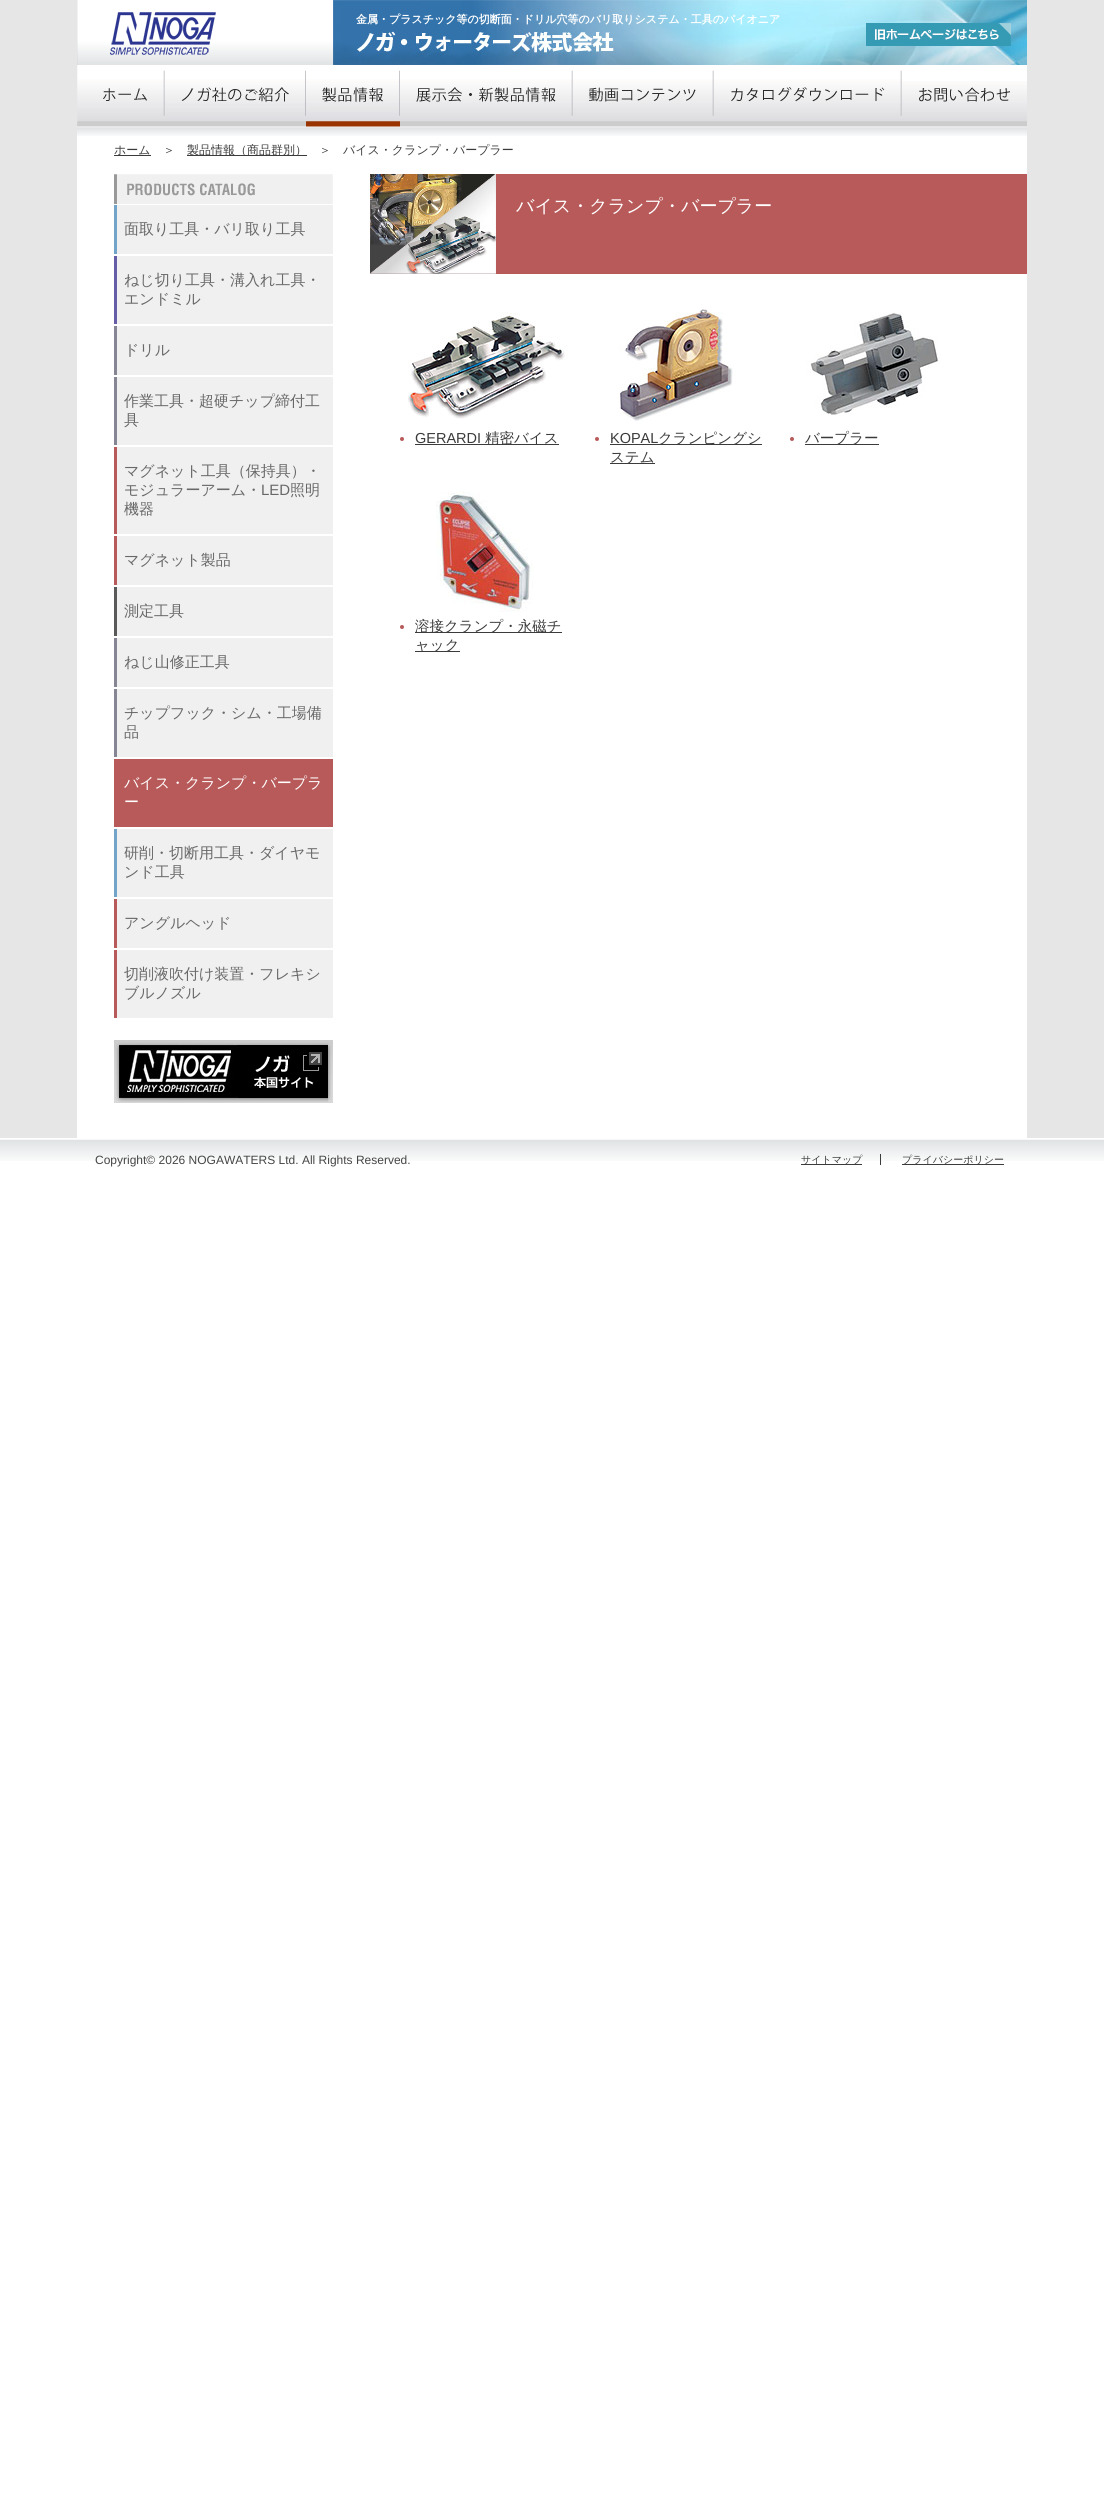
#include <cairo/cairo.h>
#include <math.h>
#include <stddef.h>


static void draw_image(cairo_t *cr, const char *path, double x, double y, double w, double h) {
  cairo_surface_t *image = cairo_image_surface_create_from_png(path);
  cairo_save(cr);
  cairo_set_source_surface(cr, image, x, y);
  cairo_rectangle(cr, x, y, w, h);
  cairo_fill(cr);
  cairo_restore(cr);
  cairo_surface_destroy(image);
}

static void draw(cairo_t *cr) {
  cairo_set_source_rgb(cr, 1, 1, 1);
  cairo_paint(cr);
  cairo_set_source_rgb(cr, 230 / 255.0, 230 / 255.0, 230 / 255.0);
  cairo_rectangle(cr, 0, 0, 1104, 1138);
  cairo_fill(cr);
  cairo_set_source_rgb(cr, 1, 1, 1);
  cairo_rectangle(cr, 77, 65, 950, 1073);
  cairo_fill(cr);
  draw_image(cr, "images/1.png", 77, 0, 256, 65);
  draw_image(cr, "images/2.png", 333, 0, 694, 65);
  draw_image(cr, "images/3.png", 866, 23, 145, 23);
  draw_image(cr, "images/4.png", 77, 65, 88, 62);
  draw_image(cr, "images/5.png", 165, 70, 141, 57);
  draw_image(cr, "images/6.png", 306, 70, 94, 57);
  draw_image(cr, "images/7.png", 400, 70, 173, 57);
  draw_image(cr, "images/8.png", 573, 70, 141, 57);
  draw_image(cr, "images/9.png", 714, 70, 188, 57);
  draw_image(cr, "images/10.png", 902, 81, 125, 46);
  draw_image(cr, "images/11.png", 77, 127, 950, 9);
  cairo_set_source_rgb(cr, 59 / 255.0, 59 / 255.0, 59 / 255.0);
  cairo_rectangle(cr, 114, 155, 37, 1);
  cairo_fill(cr);
  cairo_rectangle(cr, 187, 155, 120, 1);
  cairo_fill(cr);
  cairo_set_source_rgb(cr, 240 / 255.0, 240 / 255.0, 240 / 255.0);
  cairo_rectangle(cr, 117, 205, 216, 813);
  cairo_fill(cr);
  draw_image(cr, "images/12.png", 114, 174, 219, 31);
  cairo_set_source_rgb(cr, 1, 1, 1);
  cairo_rectangle(cr, 114, 254, 219, 2);
  cairo_fill(cr);
  cairo_set_source_rgb(cr, 114 / 255.0, 164 / 255.0, 201 / 255.0);
  cairo_rectangle(cr, 114, 205, 3, 49);
  cairo_fill(cr);
  cairo_set_source_rgb(cr, 1, 1, 1);
  cairo_rectangle(cr, 114, 324, 219, 2);
  cairo_fill(cr);
  cairo_set_source_rgb(cr, 102 / 255.0, 93 / 255.0, 168 / 255.0);
  cairo_rectangle(cr, 114, 256, 3, 68);
  cairo_fill(cr);
  cairo_set_source_rgb(cr, 1, 1, 1);
  cairo_rectangle(cr, 114, 375, 219, 2);
  cairo_fill(cr);
  cairo_set_source_rgb(cr, 134 / 255.0, 133 / 255.0, 147 / 255.0);
  cairo_rectangle(cr, 114, 326, 3, 49);
  cairo_fill(cr);
  cairo_set_source_rgb(cr, 1, 1, 1);
  cairo_rectangle(cr, 114, 445, 219, 2);
  cairo_fill(cr);
  cairo_set_source_rgb(cr, 134 / 255.0, 133 / 255.0, 147 / 255.0);
  cairo_rectangle(cr, 114, 377, 3, 68);
  cairo_fill(cr);
  cairo_set_source_rgb(cr, 1, 1, 1);
  cairo_rectangle(cr, 114, 534, 219, 2);
  cairo_fill(cr);
  cairo_set_source_rgb(cr, 184 / 255.0, 90 / 255.0, 90 / 255.0);
  cairo_rectangle(cr, 114, 447, 3, 87);
  cairo_fill(cr);
  cairo_set_source_rgb(cr, 1, 1, 1);
  cairo_rectangle(cr, 114, 585, 219, 2);
  cairo_fill(cr);
  cairo_set_source_rgb(cr, 184 / 255.0, 90 / 255.0, 90 / 255.0);
  cairo_rectangle(cr, 114, 536, 3, 49);
  cairo_fill(cr);
  cairo_set_source_rgb(cr, 1, 1, 1);
  cairo_rectangle(cr, 114, 636, 219, 2);
  cairo_fill(cr);
  cairo_set_source_rgb(cr, 89 / 255.0, 89 / 255.0, 89 / 255.0);
  cairo_rectangle(cr, 114, 587, 3, 49);
  cairo_fill(cr);
  cairo_set_source_rgb(cr, 1, 1, 1);
  cairo_rectangle(cr, 114, 687, 219, 2);
  cairo_fill(cr);
  cairo_set_source_rgb(cr, 134 / 255.0, 133 / 255.0, 147 / 255.0);
  cairo_rectangle(cr, 114, 638, 3, 49);
  cairo_fill(cr);
  cairo_set_source_rgb(cr, 1, 1, 1);
  cairo_rectangle(cr, 114, 757, 219, 2);
  cairo_fill(cr);
  cairo_set_source_rgb(cr, 134 / 255.0, 133 / 255.0, 147 / 255.0);
  cairo_rectangle(cr, 114, 689, 3, 68);
  cairo_fill(cr);
  cairo_set_source_rgb(cr, 184 / 255.0, 90 / 255.0, 90 / 255.0);
  cairo_rectangle(cr, 114, 759, 219, 68);
  cairo_fill(cr);
  cairo_set_source_rgb(cr, 1, 1, 1);
  cairo_rectangle(cr, 114, 827, 219, 2);
  cairo_fill(cr);
  cairo_rectangle(cr, 114, 897, 219, 2);
  cairo_fill(cr);
  cairo_set_source_rgb(cr, 114 / 255.0, 164 / 255.0, 201 / 255.0);
  cairo_rectangle(cr, 114, 829, 3, 68);
  cairo_fill(cr);
  cairo_set_source_rgb(cr, 1, 1, 1);
  cairo_rectangle(cr, 114, 948, 219, 2);
  cairo_fill(cr);
  cairo_set_source_rgb(cr, 184 / 255.0, 90 / 255.0, 90 / 255.0);
  cairo_rectangle(cr, 114, 899, 3, 49);
  cairo_fill(cr);
  cairo_rectangle(cr, 114, 950, 3, 68);
  cairo_fill(cr);
  draw_image(cr, "images/13.png", 114, 1040, 219, 63);
  cairo_rectangle(cr, 496, 174, 531, 100);
  cairo_fill(cr);
  draw_image(cr, "images/14.png", 370, 174, 126, 100);
  draw_image(cr, "images/15.png", 408, 312, 160, 107);
  cairo_arc(cr, 402, 439, 2, 0, 2 * M_PI);
  cairo_fill(cr);
  cairo_set_source_rgb(cr, 59 / 255.0, 59 / 255.0, 59 / 255.0);
  cairo_rectangle(cr, 415, 444, 144, 1);
  cairo_fill(cr);
  draw_image(cr, "images/16.png", 619, 309, 114, 112);
  cairo_set_source_rgb(cr, 184 / 255.0, 90 / 255.0, 90 / 255.0);
  cairo_arc(cr, 597, 439, 2, 0, 2 * M_PI);
  cairo_fill(cr);
  cairo_set_source_rgb(cr, 59 / 255.0, 59 / 255.0, 59 / 255.0);
  cairo_rectangle(cr, 610, 444, 152, 1);
  cairo_fill(cr);
  cairo_rectangle(cr, 610, 463, 45, 1);
  cairo_fill(cr);
  draw_image(cr, "images/17.png", 806, 312, 132, 103);
  cairo_set_source_rgb(cr, 184 / 255.0, 90 / 255.0, 90 / 255.0);
  cairo_arc(cr, 792, 439, 2, 0, 2 * M_PI);
  cairo_fill(cr);
  cairo_set_source_rgb(cr, 59 / 255.0, 59 / 255.0, 59 / 255.0);
  cairo_rectangle(cr, 805, 444, 74, 1);
  cairo_fill(cr);
  draw_image(cr, "images/18.png", 436, 492, 98, 120);
  cairo_set_source_rgb(cr, 184 / 255.0, 90 / 255.0, 90 / 255.0);
  cairo_arc(cr, 402, 627, 2, 0, 2 * M_PI);
  cairo_fill(cr);
  cairo_set_source_rgb(cr, 59 / 255.0, 59 / 255.0, 59 / 255.0);
  cairo_rectangle(cr, 415, 632, 147, 1);
  cairo_fill(cr);
  cairo_rectangle(cr, 415, 651, 45, 1);
  cairo_fill(cr);
  draw_image(cr, "images/19.png", 0, 1139, 1104, 22);
  cairo_rectangle(cr, 880, 1154, 1, 11);
  cairo_fill(cr);
  cairo_rectangle(cr, 801, 1164, 61, 1);
  cairo_fill(cr);
  cairo_rectangle(cr, 902, 1164, 102, 1);
  cairo_fill(cr);
  cairo_select_font_face(cr, "WenQuanYi Zen Hei", CAIRO_FONT_SLANT_NORMAL, CAIRO_FONT_WEIGHT_BOLD);
  cairo_set_font_size(cr, 11);
  cairo_set_source_rgb(cr, 1, 1, 1);
  cairo_move_to(cr, 356, 23);
  cairo_show_text(cr, "金属・プラスチック等の切断面・ドリル穴等のバリ取りシステム・工具のパイオニア");
  cairo_select_font_face(cr, "WenQuanYi Zen Hei Medium", CAIRO_FONT_SLANT_NORMAL, CAIRO_FONT_WEIGHT_NORMAL);
  cairo_set_font_size(cr, 12);
  cairo_set_source_rgb(cr, 59 / 255.0, 59 / 255.0, 59 / 255.0);
  cairo_move_to(cr, 114, 154);
  cairo_show_text(cr, "ホーム");
  cairo_move_to(cr, 163, 154);
  cairo_show_text(cr, "＞");
  cairo_move_to(cr, 187, 154);
  cairo_show_text(cr, "製品情報（商品群別）");
  cairo_move_to(cr, 319, 154);
  cairo_show_text(cr, "＞　バイス・クランプ・バープラー");
  cairo_set_font_size(cr, 15);
  cairo_set_source_rgb(cr, 104 / 255.0, 104 / 255.0, 104 / 255.0);
  cairo_move_to(cr, 124, 234);
  cairo_show_text(cr, "面取り工具・バリ取り工具");
  cairo_move_to(cr, 124, 285);
  cairo_show_text(cr, "ねじ切り工具・溝入れ工具・");
  cairo_move_to(cr, 124, 304);
  cairo_show_text(cr, "エンドミル");
  cairo_move_to(cr, 124, 355);
  cairo_show_text(cr, "ドリル");
  cairo_move_to(cr, 124, 406);
  cairo_show_text(cr, "作業工具・超硬チップ締付工");
  cairo_move_to(cr, 124, 425);
  cairo_show_text(cr, "具");
  cairo_move_to(cr, 124, 476);
  cairo_show_text(cr, "マグネット工具（保持具）・");
  cairo_move_to(cr, 124, 495);
  cairo_show_text(cr, "モジュラーアーム・");
  cairo_select_font_face(cr, "Liberation Sans", CAIRO_FONT_SLANT_NORMAL, CAIRO_FONT_WEIGHT_NORMAL);
  cairo_move_to(cr, 261, 495);
  cairo_show_text(cr, "LED");
  cairo_select_font_face(cr, "WenQuanYi Zen Hei Medium", CAIRO_FONT_SLANT_NORMAL, CAIRO_FONT_WEIGHT_NORMAL);
  cairo_move_to(cr, 290, 495);
  cairo_show_text(cr, "照明");
  cairo_move_to(cr, 124, 514);
  cairo_show_text(cr, "機器");
  cairo_move_to(cr, 124, 565);
  cairo_show_text(cr, "マグネット製品");
  cairo_move_to(cr, 124, 616);
  cairo_show_text(cr, "測定工具");
  cairo_move_to(cr, 124, 667);
  cairo_show_text(cr, "ねじ山修正工具");
  cairo_move_to(cr, 124, 718);
  cairo_show_text(cr, "チップフック・シム・工場備");
  cairo_move_to(cr, 124, 737);
  cairo_show_text(cr, "品");
  cairo_set_source_rgb(cr, 1, 1, 1);
  cairo_move_to(cr, 124, 788);
  cairo_show_text(cr, "バイス・クランプ・バープラ");
  cairo_move_to(cr, 124, 807);
  cairo_show_text(cr, "ー");
  cairo_set_source_rgb(cr, 104 / 255.0, 104 / 255.0, 104 / 255.0);
  cairo_move_to(cr, 124, 858);
  cairo_show_text(cr, "研削・切断用工具・ダイヤモ");
  cairo_move_to(cr, 124, 877);
  cairo_show_text(cr, "ンド工具");
  cairo_move_to(cr, 124, 928);
  cairo_show_text(cr, "アングルヘッド");
  cairo_move_to(cr, 124, 979);
  cairo_show_text(cr, "切削液吹付け装置・フレキシ");
  cairo_move_to(cr, 124, 998);
  cairo_show_text(cr, "ブルノズル");
  cairo_set_font_size(cr, 18);
  cairo_set_source_rgb(cr, 1, 1, 1);
  cairo_move_to(cr, 516, 212);
  cairo_show_text(cr, "バイス・クランプ・バープラー");
  cairo_select_font_face(cr, "Liberation Sans", CAIRO_FONT_SLANT_NORMAL, CAIRO_FONT_WEIGHT_NORMAL);
  cairo_set_font_size(cr, 14.5);
  cairo_set_source_rgb(cr, 59 / 255.0, 59 / 255.0, 59 / 255.0);
  cairo_move_to(cr, 415, 443);
  cairo_show_text(cr, "GERARDI");
  cairo_select_font_face(cr, "WenQuanYi Zen Hei Medium", CAIRO_FONT_SLANT_NORMAL, CAIRO_FONT_WEIGHT_NORMAL);
  cairo_move_to(cr, 485, 443);
  cairo_show_text(cr, "精密バイス");
  cairo_select_font_face(cr, "Liberation Sans", CAIRO_FONT_SLANT_NORMAL, CAIRO_FONT_WEIGHT_NORMAL);
  cairo_move_to(cr, 610, 443);
  cairo_show_text(cr, "KOPAL");
  cairo_select_font_face(cr, "WenQuanYi Zen Hei Medium", CAIRO_FONT_SLANT_NORMAL, CAIRO_FONT_WEIGHT_NORMAL);
  cairo_move_to(cr, 658, 443);
  cairo_show_text(cr, "クランピングシ");
  cairo_move_to(cr, 610, 462);
  cairo_show_text(cr, "ステム");
  cairo_move_to(cr, 805, 443);
  cairo_show_text(cr, "バープラー");
  cairo_move_to(cr, 415, 631);
  cairo_show_text(cr, "溶接クランプ・永磁チ");
  cairo_move_to(cr, 415, 650);
  cairo_show_text(cr, "ャック");
  cairo_select_font_face(cr, "Liberation Sans", CAIRO_FONT_SLANT_NORMAL, CAIRO_FONT_WEIGHT_NORMAL);
  cairo_set_font_size(cr, 12);
  cairo_set_source_rgb(cr, 69 / 255.0, 69 / 255.0, 69 / 255.0);
  cairo_move_to(cr, 95, 1164);
  cairo_show_text(cr, "Copyright© 2026 NOGAWATERS Ltd. All Rights Reserved.");
  cairo_select_font_face(cr, "WenQuanYi Zen Hei Medium", CAIRO_FONT_SLANT_NORMAL, CAIRO_FONT_WEIGHT_NORMAL);
  cairo_set_font_size(cr, 10);
  cairo_set_source_rgb(cr, 59 / 255.0, 59 / 255.0, 59 / 255.0);
  cairo_move_to(cr, 801, 1163);
  cairo_show_text(cr, "サイトマップ");
  cairo_move_to(cr, 902, 1163);
  cairo_show_text(cr, "プライバシーポリシー");
}

int main(void) {
  cairo_surface_t *surface = cairo_image_surface_create(CAIRO_FORMAT_RGB24, 1104, 2515);
  cairo_t *cr = cairo_create(surface);
  cairo_font_options_t *options = cairo_font_options_create();
  cairo_font_options_set_hint_metrics(options, CAIRO_HINT_METRICS_OFF);
  cairo_font_options_set_hint_style(options, CAIRO_HINT_STYLE_NONE);
  cairo_set_font_options(cr, options);
  cairo_set_miter_limit(cr, 4);
  draw(cr);
  cairo_surface_write_to_png(surface, "out.png");
  cairo_font_options_destroy(options);
  cairo_destroy(cr);
  cairo_surface_destroy(surface);
  return 0;
}
